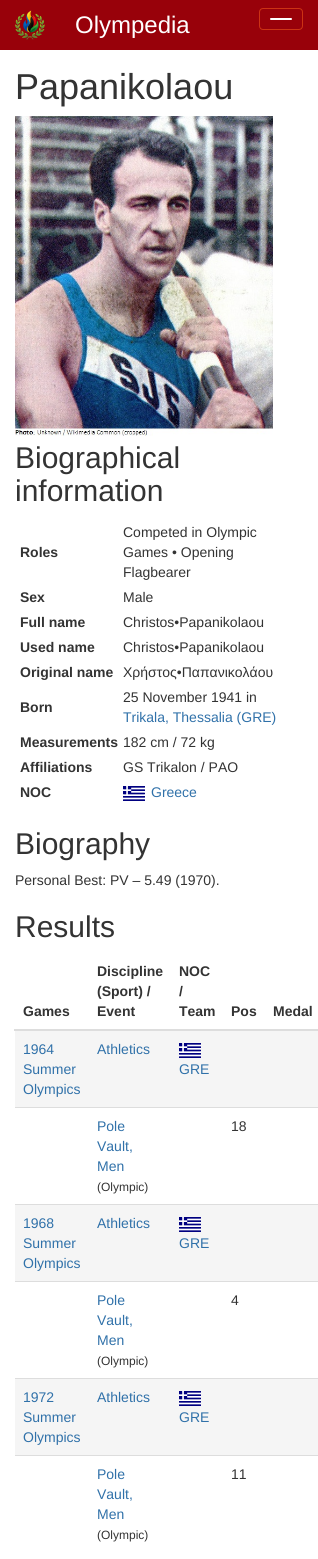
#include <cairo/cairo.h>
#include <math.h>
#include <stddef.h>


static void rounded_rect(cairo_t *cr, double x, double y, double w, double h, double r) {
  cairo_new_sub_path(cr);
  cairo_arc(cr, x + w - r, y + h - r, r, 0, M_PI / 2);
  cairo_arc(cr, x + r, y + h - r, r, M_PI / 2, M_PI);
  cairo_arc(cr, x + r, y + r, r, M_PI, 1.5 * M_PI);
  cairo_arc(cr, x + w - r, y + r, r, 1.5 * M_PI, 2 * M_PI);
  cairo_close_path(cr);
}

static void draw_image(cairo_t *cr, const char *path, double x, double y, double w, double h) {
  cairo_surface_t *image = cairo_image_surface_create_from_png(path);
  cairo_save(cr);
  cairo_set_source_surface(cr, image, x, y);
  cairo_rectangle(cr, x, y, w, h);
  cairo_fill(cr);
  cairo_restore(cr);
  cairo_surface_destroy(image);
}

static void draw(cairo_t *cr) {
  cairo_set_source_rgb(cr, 1, 1, 1);
  cairo_paint(cr);
  cairo_set_source_rgb(cr, 152 / 255.0, 1 / 255.0, 10 / 255.0);
  cairo_rectangle(cr, 0, 0, 318, 50);
  cairo_fill(cr);
  draw_image(cr, "images/1.png", 15, 10, 30, 30);
  rounded_rect(cr, 259.5, 8.5, 43, 21, 3.5);
  cairo_set_source_rgb(cr, 204 / 255.0, 51 / 255.0, 20 / 255.0);
  cairo_set_line_width(cr, 1);
  cairo_stroke(cr);
  cairo_set_source_rgb(cr, 1, 1, 1);
  rounded_rect(cr, 270, 18, 22, 2, 1);
  cairo_fill(cr);
  draw_image(cr, "images/2.png", 15, 116, 258, 320);
  draw_image(cr, "images/3.png", 123, 786, 22, 15);
  cairo_set_source_rgb(cr, 221 / 255.0, 221 / 255.0, 221 / 255.0);
  cairo_rectangle(cr, 14, 1029, 304, 2);
  cairo_fill(cr);
  cairo_set_source_rgb(cr, 245 / 255.0, 245 / 255.0, 245 / 255.0);
  cairo_rectangle(cr, 15, 1031, 303, 76);
  cairo_fill(cr);
  draw_image(cr, "images/4.png", 179, 1043, 22, 15);
  cairo_set_source_rgb(cr, 221 / 255.0, 221 / 255.0, 221 / 255.0);
  cairo_rectangle(cr, 15, 1107, 303, 1);
  cairo_fill(cr);
  cairo_rectangle(cr, 15, 1204, 303, 1);
  cairo_fill(cr);
  cairo_set_source_rgb(cr, 245 / 255.0, 245 / 255.0, 245 / 255.0);
  cairo_rectangle(cr, 15, 1205, 303, 76);
  cairo_fill(cr);
  draw_image(cr, "images/4.png", 179, 1217, 22, 15);
  cairo_set_source_rgb(cr, 221 / 255.0, 221 / 255.0, 221 / 255.0);
  cairo_rectangle(cr, 15, 1281, 303, 1);
  cairo_fill(cr);
  cairo_rectangle(cr, 15, 1378, 303, 1);
  cairo_fill(cr);
  cairo_set_source_rgb(cr, 245 / 255.0, 245 / 255.0, 245 / 255.0);
  cairo_rectangle(cr, 15, 1379, 303, 76);
  cairo_fill(cr);
  draw_image(cr, "images/4.png", 179, 1391, 22, 15);
  cairo_set_source_rgb(cr, 221 / 255.0, 221 / 255.0, 221 / 255.0);
  cairo_rectangle(cr, 15, 1455, 303, 1);
  cairo_fill(cr);
  cairo_select_font_face(cr, "Liberation Sans", CAIRO_FONT_SLANT_NORMAL, CAIRO_FONT_WEIGHT_NORMAL);
  cairo_set_font_size(cr, 24);
  cairo_set_source_rgb(cr, 1, 1, 1);
  cairo_move_to(cr, 75, 33);
  cairo_show_text(cr, "Olympedia");
  cairo_set_font_size(cr, 36);
  cairo_set_source_rgb(cr, 51 / 255.0, 51 / 255.0, 51 / 255.0);
  cairo_move_to(cr, 15, 99);
  cairo_show_text(cr, "Papanikolaou");
  cairo_set_font_size(cr, 30);
  cairo_move_to(cr, 15, 468);
  cairo_show_text(cr, "Biographical");
  cairo_move_to(cr, 15, 501);
  cairo_show_text(cr, "information");
  cairo_select_font_face(cr, "Liberation Sans", CAIRO_FONT_SLANT_NORMAL, CAIRO_FONT_WEIGHT_BOLD);
  cairo_set_font_size(cr, 14);
  cairo_move_to(cr, 20, 557);
  cairo_show_text(cr, "Roles");
  cairo_select_font_face(cr, "Liberation Sans", CAIRO_FONT_SLANT_NORMAL, CAIRO_FONT_WEIGHT_NORMAL);
  cairo_move_to(cr, 123, 537);
  cairo_show_text(cr, "Competed in Olympic");
  cairo_move_to(cr, 123, 557);
  cairo_show_text(cr, "Games • Opening");
  cairo_move_to(cr, 123, 577);
  cairo_show_text(cr, "Flagbearer");
  cairo_select_font_face(cr, "Liberation Sans", CAIRO_FONT_SLANT_NORMAL, CAIRO_FONT_WEIGHT_BOLD);
  cairo_move_to(cr, 20, 602);
  cairo_show_text(cr, "Sex");
  cairo_select_font_face(cr, "Liberation Sans", CAIRO_FONT_SLANT_NORMAL, CAIRO_FONT_WEIGHT_NORMAL);
  cairo_move_to(cr, 123, 602);
  cairo_show_text(cr, "Male");
  cairo_select_font_face(cr, "Liberation Sans", CAIRO_FONT_SLANT_NORMAL, CAIRO_FONT_WEIGHT_BOLD);
  cairo_move_to(cr, 20, 627);
  cairo_show_text(cr, "Full name");
  cairo_select_font_face(cr, "Liberation Sans", CAIRO_FONT_SLANT_NORMAL, CAIRO_FONT_WEIGHT_NORMAL);
  cairo_move_to(cr, 123, 627);
  cairo_show_text(cr, "Christos•Papanikolaou");
  cairo_select_font_face(cr, "Liberation Sans", CAIRO_FONT_SLANT_NORMAL, CAIRO_FONT_WEIGHT_BOLD);
  cairo_move_to(cr, 20, 652);
  cairo_show_text(cr, "Used name");
  cairo_select_font_face(cr, "Liberation Sans", CAIRO_FONT_SLANT_NORMAL, CAIRO_FONT_WEIGHT_NORMAL);
  cairo_move_to(cr, 123, 652);
  cairo_show_text(cr, "Christos•Papanikolaou");
  cairo_select_font_face(cr, "Liberation Sans", CAIRO_FONT_SLANT_NORMAL, CAIRO_FONT_WEIGHT_BOLD);
  cairo_move_to(cr, 20, 677);
  cairo_show_text(cr, "Original name");
  cairo_select_font_face(cr, "Liberation Sans", CAIRO_FONT_SLANT_NORMAL, CAIRO_FONT_WEIGHT_NORMAL);
  cairo_move_to(cr, 123, 677);
  cairo_show_text(cr, "Χρήστος•Παπανικολάου");
  cairo_select_font_face(cr, "Liberation Sans", CAIRO_FONT_SLANT_NORMAL, CAIRO_FONT_WEIGHT_BOLD);
  cairo_move_to(cr, 20, 712);
  cairo_show_text(cr, "Born");
  cairo_select_font_face(cr, "Liberation Sans", CAIRO_FONT_SLANT_NORMAL, CAIRO_FONT_WEIGHT_NORMAL);
  cairo_move_to(cr, 123, 702);
  cairo_show_text(cr, "25 November 1941 in");
  cairo_set_source_rgb(cr, 48 / 255.0, 113 / 255.0, 169 / 255.0);
  cairo_move_to(cr, 123, 722);
  cairo_show_text(cr, "Trikala, Thessalia (GRE)");
  cairo_select_font_face(cr, "Liberation Sans", CAIRO_FONT_SLANT_NORMAL, CAIRO_FONT_WEIGHT_BOLD);
  cairo_set_source_rgb(cr, 51 / 255.0, 51 / 255.0, 51 / 255.0);
  cairo_move_to(cr, 20, 747);
  cairo_show_text(cr, "Measurements");
  cairo_select_font_face(cr, "Liberation Sans", CAIRO_FONT_SLANT_NORMAL, CAIRO_FONT_WEIGHT_NORMAL);
  cairo_move_to(cr, 123, 747);
  cairo_show_text(cr, "182 cm / 72 kg");
  cairo_select_font_face(cr, "Liberation Sans", CAIRO_FONT_SLANT_NORMAL, CAIRO_FONT_WEIGHT_BOLD);
  cairo_move_to(cr, 20, 772);
  cairo_show_text(cr, "Affiliations");
  cairo_select_font_face(cr, "Liberation Sans", CAIRO_FONT_SLANT_NORMAL, CAIRO_FONT_WEIGHT_NORMAL);
  cairo_move_to(cr, 123, 772);
  cairo_show_text(cr, "GS Trikalon / PAO");
  cairo_select_font_face(cr, "Liberation Sans", CAIRO_FONT_SLANT_NORMAL, CAIRO_FONT_WEIGHT_BOLD);
  cairo_move_to(cr, 20, 797);
  cairo_show_text(cr, "NOC");
  cairo_select_font_face(cr, "Liberation Sans", CAIRO_FONT_SLANT_NORMAL, CAIRO_FONT_WEIGHT_NORMAL);
  cairo_set_source_rgb(cr, 48 / 255.0, 113 / 255.0, 169 / 255.0);
  cairo_move_to(cr, 151, 797);
  cairo_show_text(cr, "Greece");
  cairo_set_font_size(cr, 30);
  cairo_set_source_rgb(cr, 51 / 255.0, 51 / 255.0, 51 / 255.0);
  cairo_move_to(cr, 15, 854);
  cairo_show_text(cr, "Biography");
  cairo_set_font_size(cr, 14);
  cairo_move_to(cr, 15, 885);
  cairo_show_text(cr, "Personal Best: PV – 5.49 (1970).");
  cairo_set_font_size(cr, 30);
  cairo_move_to(cr, 15, 937);
  cairo_show_text(cr, "Results");
  cairo_select_font_face(cr, "Liberation Sans", CAIRO_FONT_SLANT_NORMAL, CAIRO_FONT_WEIGHT_BOLD);
  cairo_set_font_size(cr, 14);
  cairo_move_to(cr, 23, 1016);
  cairo_show_text(cr, "Games");
  cairo_move_to(cr, 97, 976);
  cairo_show_text(cr, "Discipline");
  cairo_move_to(cr, 97, 996);
  cairo_show_text(cr, "(Sport) /");
  cairo_move_to(cr, 97, 1016);
  cairo_show_text(cr, "Event");
  cairo_move_to(cr, 179, 976);
  cairo_show_text(cr, "NOC");
  cairo_move_to(cr, 179, 996);
  cairo_show_text(cr, "/");
  cairo_move_to(cr, 179, 1016);
  cairo_show_text(cr, "Team");
  cairo_move_to(cr, 231, 1016);
  cairo_show_text(cr, "Pos");
  cairo_move_to(cr, 273, 1016);
  cairo_show_text(cr, "Medal");
  cairo_select_font_face(cr, "Liberation Sans", CAIRO_FONT_SLANT_NORMAL, CAIRO_FONT_WEIGHT_NORMAL);
  cairo_set_source_rgb(cr, 48 / 255.0, 113 / 255.0, 169 / 255.0);
  cairo_move_to(cr, 23, 1054);
  cairo_show_text(cr, "1964");
  cairo_move_to(cr, 23, 1074);
  cairo_show_text(cr, "Summer");
  cairo_move_to(cr, 23, 1094);
  cairo_show_text(cr, "Olympics");
  cairo_move_to(cr, 97, 1054);
  cairo_show_text(cr, "Athletics");
  cairo_move_to(cr, 179, 1074);
  cairo_show_text(cr, "GRE");
  cairo_move_to(cr, 97, 1131);
  cairo_show_text(cr, "Pole");
  cairo_move_to(cr, 97, 1151);
  cairo_show_text(cr, "Vault,");
  cairo_move_to(cr, 97, 1171);
  cairo_show_text(cr, "Men");
  cairo_set_font_size(cr, 12);
  cairo_set_source_rgb(cr, 51 / 255.0, 51 / 255.0, 51 / 255.0);
  cairo_move_to(cr, 97, 1191);
  cairo_show_text(cr, "(Olympic)");
  cairo_set_font_size(cr, 14);
  cairo_move_to(cr, 231, 1131);
  cairo_show_text(cr, "18");
  cairo_set_source_rgb(cr, 48 / 255.0, 113 / 255.0, 169 / 255.0);
  cairo_move_to(cr, 23, 1228);
  cairo_show_text(cr, "1968");
  cairo_move_to(cr, 23, 1248);
  cairo_show_text(cr, "Summer");
  cairo_move_to(cr, 23, 1268);
  cairo_show_text(cr, "Olympics");
  cairo_move_to(cr, 97, 1228);
  cairo_show_text(cr, "Athletics");
  cairo_move_to(cr, 179, 1248);
  cairo_show_text(cr, "GRE");
  cairo_move_to(cr, 97, 1305);
  cairo_show_text(cr, "Pole");
  cairo_move_to(cr, 97, 1325);
  cairo_show_text(cr, "Vault,");
  cairo_move_to(cr, 97, 1345);
  cairo_show_text(cr, "Men");
  cairo_set_font_size(cr, 12);
  cairo_set_source_rgb(cr, 51 / 255.0, 51 / 255.0, 51 / 255.0);
  cairo_move_to(cr, 97, 1365);
  cairo_show_text(cr, "(Olympic)");
  cairo_set_font_size(cr, 14);
  cairo_move_to(cr, 231, 1305);
  cairo_show_text(cr, "4");
  cairo_set_source_rgb(cr, 48 / 255.0, 113 / 255.0, 169 / 255.0);
  cairo_move_to(cr, 23, 1402);
  cairo_show_text(cr, "1972");
  cairo_move_to(cr, 23, 1422);
  cairo_show_text(cr, "Summer");
  cairo_move_to(cr, 23, 1442);
  cairo_show_text(cr, "Olympics");
  cairo_move_to(cr, 97, 1402);
  cairo_show_text(cr, "Athletics");
  cairo_move_to(cr, 179, 1422);
  cairo_show_text(cr, "GRE");
  cairo_move_to(cr, 97, 1479);
  cairo_show_text(cr, "Pole");
  cairo_move_to(cr, 97, 1499);
  cairo_show_text(cr, "Vault,");
  cairo_move_to(cr, 97, 1519);
  cairo_show_text(cr, "Men");
  cairo_set_font_size(cr, 12);
  cairo_set_source_rgb(cr, 51 / 255.0, 51 / 255.0, 51 / 255.0);
  cairo_move_to(cr, 97, 1539);
  cairo_show_text(cr, "(Olympic)");
  cairo_set_font_size(cr, 14);
  cairo_move_to(cr, 231, 1479);
  cairo_show_text(cr, "11");
}

int main(void) {
  cairo_surface_t *surface = cairo_image_surface_create(CAIRO_FORMAT_RGB24, 318, 1559);
  cairo_t *cr = cairo_create(surface);
  cairo_font_options_t *options = cairo_font_options_create();
  cairo_font_options_set_hint_metrics(options, CAIRO_HINT_METRICS_OFF);
  cairo_font_options_set_hint_style(options, CAIRO_HINT_STYLE_NONE);
  cairo_set_font_options(cr, options);
  cairo_set_miter_limit(cr, 4);
  draw(cr);
  cairo_surface_write_to_png(surface, "out.png");
  cairo_font_options_destroy(options);
  cairo_destroy(cr);
  cairo_surface_destroy(surface);
  return 0;
}
